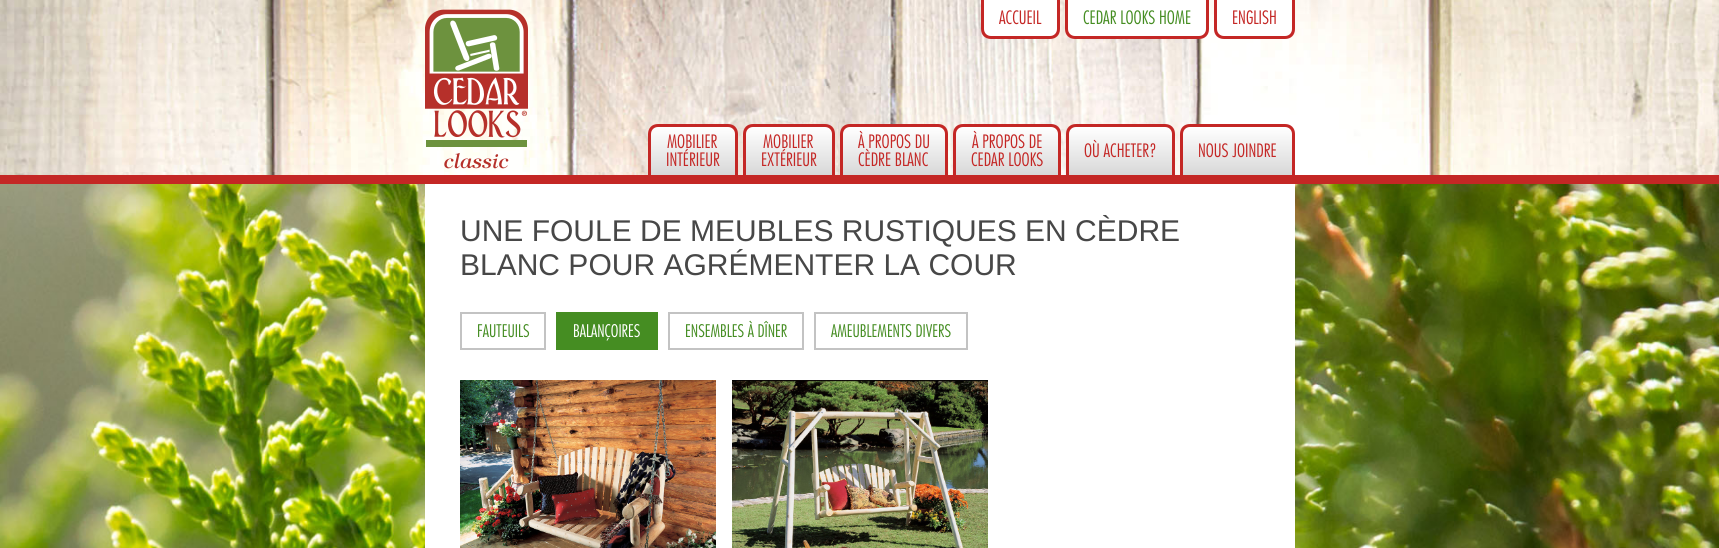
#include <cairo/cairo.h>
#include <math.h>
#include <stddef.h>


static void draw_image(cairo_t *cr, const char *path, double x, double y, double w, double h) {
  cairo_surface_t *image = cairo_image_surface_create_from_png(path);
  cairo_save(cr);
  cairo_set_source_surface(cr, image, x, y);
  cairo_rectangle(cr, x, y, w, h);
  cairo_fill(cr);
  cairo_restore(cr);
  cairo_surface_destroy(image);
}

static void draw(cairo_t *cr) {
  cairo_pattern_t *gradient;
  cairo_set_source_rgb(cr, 1, 1, 1);
  cairo_paint(cr);
  draw_image(cr, "images/1.png", 0, 0, 1719, 175);
  cairo_set_source_rgb(cr, 196 / 255.0, 39 / 255.0, 37 / 255.0);
  cairo_rectangle(cr, 0, 175, 1719, 9);
  cairo_fill(cr);
  draw_image(cr, "images/2.png", 425, 9, 103, 160);
  cairo_set_source_rgb(cr, 1, 1, 1);
  cairo_new_path(cr);
  cairo_move_to(cr, 981, 0);
  cairo_line_to(cr, 1060, 0);
  cairo_line_to(cr, 1060, 29);
  cairo_curve_to(cr, 1060, 34.5, 1055.5, 39, 1050, 39);
  cairo_line_to(cr, 991, 39);
  cairo_curve_to(cr, 985.5, 39, 981, 34.5, 981, 29);
  cairo_close_path(cr);
  cairo_fill(cr);
  cairo_set_source_rgb(cr, 196 / 255.0, 39 / 255.0, 37 / 255.0);
  cairo_set_fill_rule(cr, CAIRO_FILL_RULE_EVEN_ODD);
  cairo_new_path(cr);
  cairo_move_to(cr, 981, 0);
  cairo_line_to(cr, 1060, 0);
  cairo_line_to(cr, 1060, 29);
  cairo_curve_to(cr, 1060, 35, 1056, 39, 1050, 39);
  cairo_line_to(cr, 991, 39);
  cairo_curve_to(cr, 985, 39, 981, 35, 981, 29);
  cairo_close_path(cr);
  cairo_move_to(cr, 984, 0);
  cairo_line_to(cr, 1057, 0);
  cairo_line_to(cr, 1057, 29);
  cairo_curve_to(cr, 1057, 33, 1054, 36, 1050, 36);
  cairo_line_to(cr, 991, 36);
  cairo_curve_to(cr, 987, 36, 984, 33, 984, 29);
  cairo_close_path(cr);
  cairo_fill(cr);
  cairo_set_source_rgb(cr, 1, 1, 1);
  cairo_new_path(cr);
  cairo_move_to(cr, 1065, 0);
  cairo_line_to(cr, 1209, 0);
  cairo_line_to(cr, 1209, 29);
  cairo_curve_to(cr, 1209, 34.5, 1204.5, 39, 1199, 39);
  cairo_line_to(cr, 1075, 39);
  cairo_curve_to(cr, 1069.5, 39, 1065, 34.5, 1065, 29);
  cairo_close_path(cr);
  cairo_fill(cr);
  cairo_set_source_rgb(cr, 196 / 255.0, 39 / 255.0, 37 / 255.0);
  cairo_new_path(cr);
  cairo_move_to(cr, 1065, 0);
  cairo_line_to(cr, 1209, 0);
  cairo_line_to(cr, 1209, 29);
  cairo_curve_to(cr, 1209, 35, 1205, 39, 1199, 39);
  cairo_line_to(cr, 1075, 39);
  cairo_curve_to(cr, 1069, 39, 1065, 35, 1065, 29);
  cairo_close_path(cr);
  cairo_move_to(cr, 1068, 0);
  cairo_line_to(cr, 1206, 0);
  cairo_line_to(cr, 1206, 29);
  cairo_curve_to(cr, 1206, 33, 1203, 36, 1199, 36);
  cairo_line_to(cr, 1075, 36);
  cairo_curve_to(cr, 1071, 36, 1068, 33, 1068, 29);
  cairo_close_path(cr);
  cairo_fill(cr);
  cairo_set_source_rgb(cr, 1, 1, 1);
  cairo_new_path(cr);
  cairo_move_to(cr, 1214, 0);
  cairo_line_to(cr, 1295, 0);
  cairo_line_to(cr, 1295, 29);
  cairo_curve_to(cr, 1295, 34.5, 1290.5, 39, 1285, 39);
  cairo_line_to(cr, 1224, 39);
  cairo_curve_to(cr, 1218.5, 39, 1214, 34.5, 1214, 29);
  cairo_close_path(cr);
  cairo_fill(cr);
  cairo_set_source_rgb(cr, 196 / 255.0, 39 / 255.0, 37 / 255.0);
  cairo_new_path(cr);
  cairo_move_to(cr, 1214, 0);
  cairo_line_to(cr, 1295, 0);
  cairo_line_to(cr, 1295, 29);
  cairo_curve_to(cr, 1295, 35, 1291, 39, 1285, 39);
  cairo_line_to(cr, 1224, 39);
  cairo_curve_to(cr, 1218, 39, 1214, 35, 1214, 29);
  cairo_close_path(cr);
  cairo_move_to(cr, 1217, 0);
  cairo_line_to(cr, 1292, 0);
  cairo_line_to(cr, 1292, 29);
  cairo_curve_to(cr, 1292, 33, 1289, 36, 1285, 36);
  cairo_line_to(cr, 1224, 36);
  cairo_curve_to(cr, 1220, 36, 1217, 33, 1217, 29);
  cairo_close_path(cr);
  cairo_fill(cr);
  cairo_save(cr);
  cairo_set_fill_rule(cr, CAIRO_FILL_RULE_WINDING);
  cairo_new_path(cr);
  cairo_move_to(cr, 658, 124);
  cairo_line_to(cr, 728, 124);
  cairo_curve_to(cr, 733.5, 124, 738, 128.5, 738, 134);
  cairo_line_to(cr, 738, 175);
  cairo_line_to(cr, 648, 175);
  cairo_line_to(cr, 648, 134);
  cairo_curve_to(cr, 648, 128.5, 652.5, 124, 658, 124);
  cairo_close_path(cr);
  cairo_clip(cr);
  gradient = cairo_pattern_create_linear(693, 127, 693, 175);
  cairo_pattern_add_color_stop_rgba(gradient, 0, 1, 1, 1, 1);
  cairo_pattern_add_color_stop_rgba(gradient, 1, 216 / 255.0, 216 / 255.0, 216 / 255.0, 1);
  cairo_set_source(cr, gradient);
  cairo_pattern_destroy(gradient);
  cairo_rectangle(cr, 648, 127, 90, 48);
  cairo_fill(cr);
  cairo_restore(cr);
  cairo_new_path(cr);
  cairo_move_to(cr, 658, 124);
  cairo_line_to(cr, 728, 124);
  cairo_curve_to(cr, 734, 124, 738, 128, 738, 134);
  cairo_line_to(cr, 738, 175);
  cairo_line_to(cr, 648, 175);
  cairo_line_to(cr, 648, 134);
  cairo_curve_to(cr, 648, 128, 652, 124, 658, 124);
  cairo_close_path(cr);
  cairo_move_to(cr, 658, 127);
  cairo_line_to(cr, 728, 127);
  cairo_curve_to(cr, 732, 127, 735, 130, 735, 134);
  cairo_line_to(cr, 735, 175);
  cairo_line_to(cr, 651, 175);
  cairo_line_to(cr, 651, 134);
  cairo_curve_to(cr, 651, 130, 654, 127, 658, 127);
  cairo_close_path(cr);
  cairo_fill(cr);
  cairo_save(cr);
  cairo_set_fill_rule(cr, CAIRO_FILL_RULE_WINDING);
  cairo_new_path(cr);
  cairo_move_to(cr, 753, 124);
  cairo_line_to(cr, 825, 124);
  cairo_curve_to(cr, 830.5, 124, 835, 128.5, 835, 134);
  cairo_line_to(cr, 835, 175);
  cairo_line_to(cr, 743, 175);
  cairo_line_to(cr, 743, 134);
  cairo_curve_to(cr, 743, 128.5, 747.5, 124, 753, 124);
  cairo_close_path(cr);
  cairo_clip(cr);
  gradient = cairo_pattern_create_linear(789, 127, 789, 175);
  cairo_pattern_add_color_stop_rgba(gradient, 0, 1, 1, 1, 1);
  cairo_pattern_add_color_stop_rgba(gradient, 1, 216 / 255.0, 216 / 255.0, 216 / 255.0, 1);
  cairo_set_source(cr, gradient);
  cairo_pattern_destroy(gradient);
  cairo_rectangle(cr, 743, 127, 92, 48);
  cairo_fill(cr);
  cairo_restore(cr);
  cairo_new_path(cr);
  cairo_move_to(cr, 753, 124);
  cairo_line_to(cr, 825, 124);
  cairo_curve_to(cr, 831, 124, 835, 128, 835, 134);
  cairo_line_to(cr, 835, 175);
  cairo_line_to(cr, 743, 175);
  cairo_line_to(cr, 743, 134);
  cairo_curve_to(cr, 743, 128, 747, 124, 753, 124);
  cairo_close_path(cr);
  cairo_move_to(cr, 753, 127);
  cairo_line_to(cr, 825, 127);
  cairo_curve_to(cr, 829, 127, 832, 130, 832, 134);
  cairo_line_to(cr, 832, 175);
  cairo_line_to(cr, 746, 175);
  cairo_line_to(cr, 746, 134);
  cairo_curve_to(cr, 746, 130, 749, 127, 753, 127);
  cairo_close_path(cr);
  cairo_fill(cr);
  cairo_save(cr);
  cairo_set_fill_rule(cr, CAIRO_FILL_RULE_WINDING);
  cairo_new_path(cr);
  cairo_move_to(cr, 850, 124);
  cairo_line_to(cr, 938, 124);
  cairo_curve_to(cr, 943.5, 124, 948, 128.5, 948, 134);
  cairo_line_to(cr, 948, 175);
  cairo_line_to(cr, 840, 175);
  cairo_line_to(cr, 840, 134);
  cairo_curve_to(cr, 840, 128.5, 844.5, 124, 850, 124);
  cairo_close_path(cr);
  cairo_clip(cr);
  gradient = cairo_pattern_create_linear(894, 127, 894, 175);
  cairo_pattern_add_color_stop_rgba(gradient, 0, 1, 1, 1, 1);
  cairo_pattern_add_color_stop_rgba(gradient, 1, 216 / 255.0, 216 / 255.0, 216 / 255.0, 1);
  cairo_set_source(cr, gradient);
  cairo_pattern_destroy(gradient);
  cairo_rectangle(cr, 840, 127, 108, 48);
  cairo_fill(cr);
  cairo_restore(cr);
  cairo_new_path(cr);
  cairo_move_to(cr, 850, 124);
  cairo_line_to(cr, 938, 124);
  cairo_curve_to(cr, 944, 124, 948, 128, 948, 134);
  cairo_line_to(cr, 948, 175);
  cairo_line_to(cr, 840, 175);
  cairo_line_to(cr, 840, 134);
  cairo_curve_to(cr, 840, 128, 844, 124, 850, 124);
  cairo_close_path(cr);
  cairo_move_to(cr, 850, 127);
  cairo_line_to(cr, 938, 127);
  cairo_curve_to(cr, 942, 127, 945, 130, 945, 134);
  cairo_line_to(cr, 945, 175);
  cairo_line_to(cr, 843, 175);
  cairo_line_to(cr, 843, 134);
  cairo_curve_to(cr, 843, 130, 846, 127, 850, 127);
  cairo_close_path(cr);
  cairo_fill(cr);
  cairo_save(cr);
  cairo_set_fill_rule(cr, CAIRO_FILL_RULE_WINDING);
  cairo_new_path(cr);
  cairo_move_to(cr, 963, 124);
  cairo_line_to(cr, 1051, 124);
  cairo_curve_to(cr, 1056.5, 124, 1061, 128.5, 1061, 134);
  cairo_line_to(cr, 1061, 175);
  cairo_line_to(cr, 953, 175);
  cairo_line_to(cr, 953, 134);
  cairo_curve_to(cr, 953, 128.5, 957.5, 124, 963, 124);
  cairo_close_path(cr);
  cairo_clip(cr);
  gradient = cairo_pattern_create_linear(1007, 127, 1007, 175);
  cairo_pattern_add_color_stop_rgba(gradient, 0, 1, 1, 1, 1);
  cairo_pattern_add_color_stop_rgba(gradient, 1, 216 / 255.0, 216 / 255.0, 216 / 255.0, 1);
  cairo_set_source(cr, gradient);
  cairo_pattern_destroy(gradient);
  cairo_rectangle(cr, 953, 127, 108, 48);
  cairo_fill(cr);
  cairo_restore(cr);
  cairo_new_path(cr);
  cairo_move_to(cr, 963, 124);
  cairo_line_to(cr, 1051, 124);
  cairo_curve_to(cr, 1057, 124, 1061, 128, 1061, 134);
  cairo_line_to(cr, 1061, 175);
  cairo_line_to(cr, 953, 175);
  cairo_line_to(cr, 953, 134);
  cairo_curve_to(cr, 953, 128, 957, 124, 963, 124);
  cairo_close_path(cr);
  cairo_move_to(cr, 963, 127);
  cairo_line_to(cr, 1051, 127);
  cairo_curve_to(cr, 1055, 127, 1058, 130, 1058, 134);
  cairo_line_to(cr, 1058, 175);
  cairo_line_to(cr, 956, 175);
  cairo_line_to(cr, 956, 134);
  cairo_curve_to(cr, 956, 130, 959, 127, 963, 127);
  cairo_close_path(cr);
  cairo_fill(cr);
  cairo_save(cr);
  cairo_set_fill_rule(cr, CAIRO_FILL_RULE_WINDING);
  cairo_new_path(cr);
  cairo_move_to(cr, 1076, 124);
  cairo_line_to(cr, 1165, 124);
  cairo_curve_to(cr, 1170.5, 124, 1175, 128.5, 1175, 134);
  cairo_line_to(cr, 1175, 175);
  cairo_line_to(cr, 1066, 175);
  cairo_line_to(cr, 1066, 134);
  cairo_curve_to(cr, 1066, 128.5, 1070.5, 124, 1076, 124);
  cairo_close_path(cr);
  cairo_clip(cr);
  gradient = cairo_pattern_create_linear(1121, 127, 1121, 175);
  cairo_pattern_add_color_stop_rgba(gradient, 0, 1, 1, 1, 1);
  cairo_pattern_add_color_stop_rgba(gradient, 1, 216 / 255.0, 216 / 255.0, 216 / 255.0, 1);
  cairo_set_source(cr, gradient);
  cairo_pattern_destroy(gradient);
  cairo_rectangle(cr, 1066, 127, 109, 48);
  cairo_fill(cr);
  cairo_restore(cr);
  cairo_new_path(cr);
  cairo_move_to(cr, 1076, 124);
  cairo_line_to(cr, 1165, 124);
  cairo_curve_to(cr, 1171, 124, 1175, 128, 1175, 134);
  cairo_line_to(cr, 1175, 175);
  cairo_line_to(cr, 1066, 175);
  cairo_line_to(cr, 1066, 134);
  cairo_curve_to(cr, 1066, 128, 1070, 124, 1076, 124);
  cairo_close_path(cr);
  cairo_move_to(cr, 1076, 127);
  cairo_line_to(cr, 1165, 127);
  cairo_curve_to(cr, 1169, 127, 1172, 130, 1172, 134);
  cairo_line_to(cr, 1172, 175);
  cairo_line_to(cr, 1069, 175);
  cairo_line_to(cr, 1069, 134);
  cairo_curve_to(cr, 1069, 130, 1072, 127, 1076, 127);
  cairo_close_path(cr);
  cairo_fill(cr);
  cairo_save(cr);
  cairo_set_fill_rule(cr, CAIRO_FILL_RULE_WINDING);
  cairo_new_path(cr);
  cairo_move_to(cr, 1190, 124);
  cairo_line_to(cr, 1285, 124);
  cairo_curve_to(cr, 1290.5, 124, 1295, 128.5, 1295, 134);
  cairo_line_to(cr, 1295, 175);
  cairo_line_to(cr, 1180, 175);
  cairo_line_to(cr, 1180, 134);
  cairo_curve_to(cr, 1180, 128.5, 1184.5, 124, 1190, 124);
  cairo_close_path(cr);
  cairo_clip(cr);
  gradient = cairo_pattern_create_linear(1238, 127, 1238, 175);
  cairo_pattern_add_color_stop_rgba(gradient, 0, 1, 1, 1, 1);
  cairo_pattern_add_color_stop_rgba(gradient, 1, 216 / 255.0, 216 / 255.0, 216 / 255.0, 1);
  cairo_set_source(cr, gradient);
  cairo_pattern_destroy(gradient);
  cairo_rectangle(cr, 1180, 127, 115, 48);
  cairo_fill(cr);
  cairo_restore(cr);
  cairo_new_path(cr);
  cairo_move_to(cr, 1190, 124);
  cairo_line_to(cr, 1285, 124);
  cairo_curve_to(cr, 1291, 124, 1295, 128, 1295, 134);
  cairo_line_to(cr, 1295, 175);
  cairo_line_to(cr, 1180, 175);
  cairo_line_to(cr, 1180, 134);
  cairo_curve_to(cr, 1180, 128, 1184, 124, 1190, 124);
  cairo_close_path(cr);
  cairo_move_to(cr, 1190, 127);
  cairo_line_to(cr, 1285, 127);
  cairo_curve_to(cr, 1289, 127, 1292, 130, 1292, 134);
  cairo_line_to(cr, 1292, 175);
  cairo_line_to(cr, 1183, 175);
  cairo_line_to(cr, 1183, 134);
  cairo_curve_to(cr, 1183, 130, 1186, 127, 1190, 127);
  cairo_close_path(cr);
  cairo_fill(cr);
  draw_image(cr, "images/3.png", 0, 184, 1719, 364);
  cairo_set_source_rgb(cr, 1, 1, 1);
  cairo_rectangle(cr, 425, 184, 870, 364);
  cairo_fill(cr);
  cairo_rectangle(cr, 461, 313, 84, 36);
  cairo_set_source_rgb(cr, 195 / 255.0, 195 / 255.0, 195 / 255.0);
  cairo_stroke(cr);
  cairo_set_source_rgb(cr, 69 / 255.0, 141 / 255.0, 34 / 255.0);
  cairo_rectangle(cr, 556, 312, 102, 38);
  cairo_fill(cr);
  cairo_rectangle(cr, 669, 313, 134, 36);
  cairo_set_source_rgb(cr, 195 / 255.0, 195 / 255.0, 195 / 255.0);
  cairo_stroke(cr);
  cairo_rectangle(cr, 815, 313, 152, 36);
  cairo_stroke(cr);
  draw_image(cr, "images/4.png", 460, 380, 256, 168);
  draw_image(cr, "images/5.png", 732, 380, 256, 168);
  cairo_select_font_face(cr, "Futura Light", CAIRO_FONT_SLANT_NORMAL, CAIRO_FONT_WEIGHT_NORMAL);
  cairo_set_font_size(cr, 18);
  cairo_set_source_rgb(cr, 196 / 255.0, 39 / 255.0, 37 / 255.0);
  cairo_move_to(cr, 999, 24);
  cairo_show_text(cr, "ACCUEIL");
  cairo_set_source_rgb(cr, 69 / 255.0, 141 / 255.0, 34 / 255.0);
  cairo_move_to(cr, 1083, 24);
  cairo_show_text(cr, "CEDAR LOOKS HOME");
  cairo_set_source_rgb(cr, 196 / 255.0, 39 / 255.0, 37 / 255.0);
  cairo_move_to(cr, 1232, 24);
  cairo_show_text(cr, "ENGLISH");
  cairo_move_to(cr, 667, 148);
  cairo_show_text(cr, "MOBILIER");
  cairo_move_to(cr, 666, 166);
  cairo_show_text(cr, "INTÉRIEUR");
  cairo_move_to(cr, 763, 148);
  cairo_show_text(cr, "MOBILIER");
  cairo_move_to(cr, 761, 166);
  cairo_show_text(cr, "EXTÉRIEUR");
  cairo_move_to(cr, 858, 148);
  cairo_show_text(cr, "À PROPOS DU");
  cairo_move_to(cr, 858, 166);
  cairo_show_text(cr, "CÈDRE BLANC");
  cairo_move_to(cr, 972, 148);
  cairo_show_text(cr, "À PROPOS DE");
  cairo_move_to(cr, 971, 166);
  cairo_show_text(cr, "CEDAR LOOKS");
  cairo_move_to(cr, 1084, 157);
  cairo_show_text(cr, "OÙ ACHETER?");
  cairo_move_to(cr, 1198, 157);
  cairo_show_text(cr, "NOUS JOINDRE");
  cairo_select_font_face(cr, "Liberation Sans", CAIRO_FONT_SLANT_NORMAL, CAIRO_FONT_WEIGHT_NORMAL);
  cairo_set_font_size(cr, 30);
  cairo_set_source_rgb(cr, 71 / 255.0, 71 / 255.0, 71 / 255.0);
  cairo_move_to(cr, 460, 241);
  cairo_show_text(cr, "UNE FOULE DE MEUBLES RUSTIQUES EN CÈDRE");
  cairo_move_to(cr, 460, 275);
  cairo_show_text(cr, "BLANC POUR AGRÉMENTER LA COUR");
  cairo_select_font_face(cr, "Futura Light", CAIRO_FONT_SLANT_NORMAL, CAIRO_FONT_WEIGHT_NORMAL);
  cairo_set_font_size(cr, 17);
  cairo_set_source_rgb(cr, 69 / 255.0, 141 / 255.0, 34 / 255.0);
  cairo_move_to(cr, 477, 337);
  cairo_show_text(cr, "FAUTEUILS");
  cairo_set_source_rgb(cr, 1, 1, 1);
  cairo_move_to(cr, 573, 337);
  cairo_show_text(cr, "BALANÇOIRES");
  cairo_set_source_rgb(cr, 69 / 255.0, 141 / 255.0, 34 / 255.0);
  cairo_move_to(cr, 685, 337);
  cairo_show_text(cr, "ENSEMBLES À DÎNER");
  cairo_move_to(cr, 831, 337);
  cairo_show_text(cr, "AMEUBLEMENTS DIVERS");
}

int main(void) {
  cairo_surface_t *surface = cairo_image_surface_create(CAIRO_FORMAT_RGB24, 1719, 548);
  cairo_t *cr = cairo_create(surface);
  cairo_font_options_t *options = cairo_font_options_create();
  cairo_font_options_set_hint_metrics(options, CAIRO_HINT_METRICS_OFF);
  cairo_font_options_set_hint_style(options, CAIRO_HINT_STYLE_NONE);
  cairo_set_font_options(cr, options);
  cairo_set_miter_limit(cr, 4);
  draw(cr);
  cairo_surface_write_to_png(surface, "out.png");
  cairo_font_options_destroy(options);
  cairo_destroy(cr);
  cairo_surface_destroy(surface);
  return 0;
}
